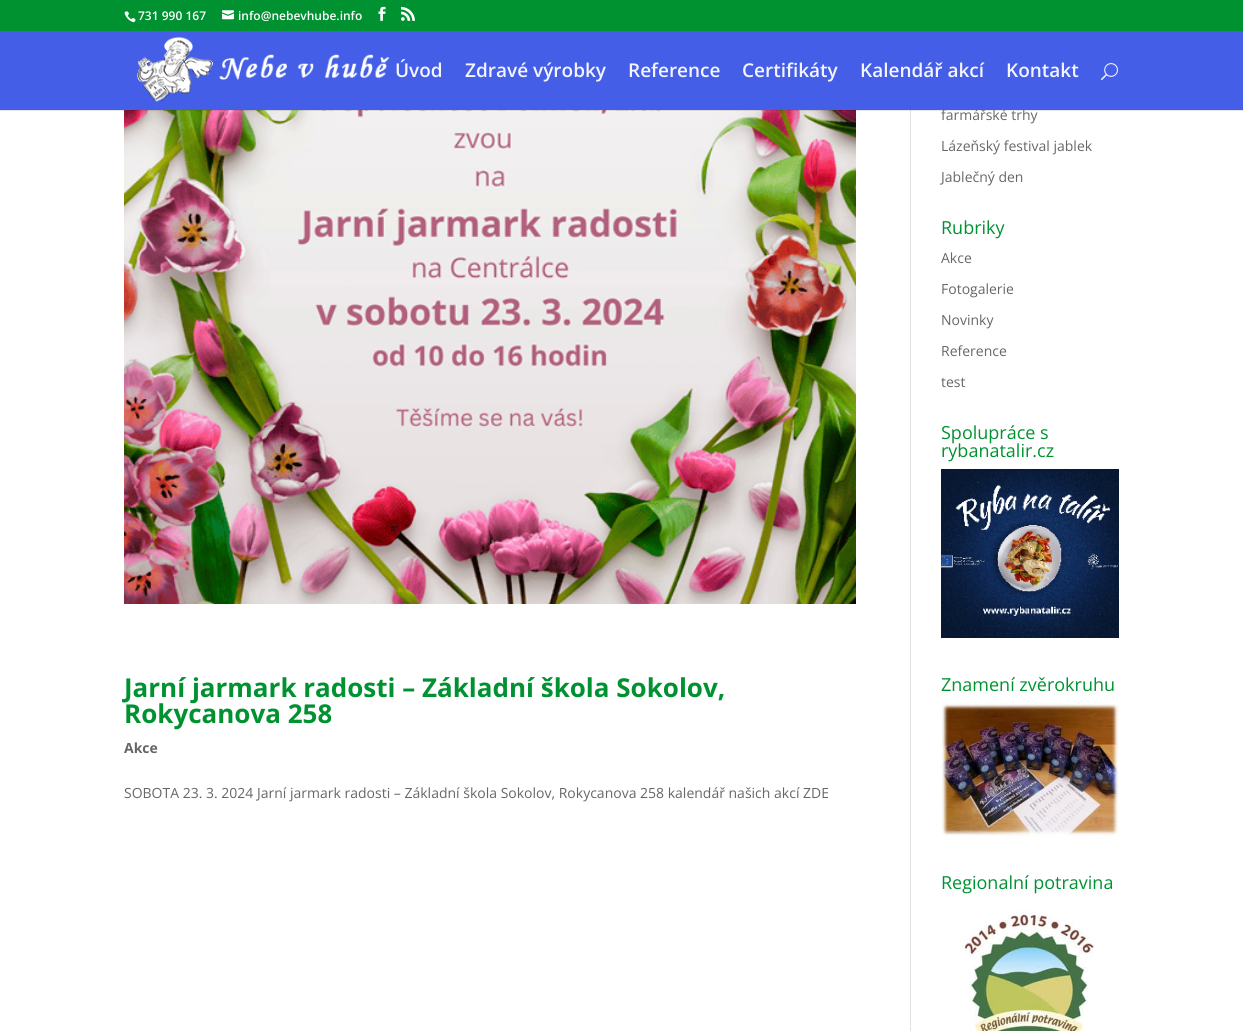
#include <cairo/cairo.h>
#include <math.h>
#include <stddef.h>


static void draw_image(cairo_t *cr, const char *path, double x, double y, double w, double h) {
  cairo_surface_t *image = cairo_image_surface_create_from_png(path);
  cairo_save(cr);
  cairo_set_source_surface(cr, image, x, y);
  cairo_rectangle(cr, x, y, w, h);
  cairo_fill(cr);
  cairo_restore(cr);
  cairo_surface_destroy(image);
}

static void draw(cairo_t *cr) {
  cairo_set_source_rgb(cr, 1, 1, 1);
  cairo_paint(cr);
  cairo_set_source_rgb(cr, 0, 146 / 255.0, 49 / 255.0);
  cairo_rectangle(cr, 0, 0, 1243, 31);
  cairo_fill(cr);
  draw_image(cr, "images/1.png", 124, 11, 12, 12);
  draw_image(cr, "images/2.png", 222, 10, 12, 10);
  draw_image(cr, "images/3.png", 378, 6, 8, 15);
  draw_image(cr, "images/4.png", 401, 6, 14, 15);
  draw_image(cr, "images/7.png", 124, 110, 732, 494);
  cairo_set_source_rgb(cr, 226 / 255.0, 226 / 255.0, 226 / 255.0);
  cairo_rectangle(cr, 910, 110, 1, 921);
  cairo_fill(cr);
  cairo_set_source_rgba(cr, 0, 0, 0, 0.1);
  cairo_rectangle(cr, 0, 110, 1243, 1);
  cairo_fill(cr);
  draw_image(cr, "images/8.png", 941, 469, 178, 169);
  draw_image(cr, "images/9.png", 941, 703, 178, 133);
  draw_image(cr, "images/10.png", 960, 910, 137, 121);
  cairo_select_font_face(cr, "Open Sans SemiBold", CAIRO_FONT_SLANT_NORMAL, CAIRO_FONT_WEIGHT_NORMAL);
  cairo_set_font_size(cr, 12);
  cairo_set_source_rgb(cr, 1, 1, 1);
  cairo_move_to(cr, 138, 20);
  cairo_show_text(cr, "731 990 167");
  cairo_move_to(cr, 238, 20);
  cairo_show_text(cr, "info@nebevhube.info");
  cairo_select_font_face(cr, "Open Sans", CAIRO_FONT_SLANT_NORMAL, CAIRO_FONT_WEIGHT_BOLD);
  cairo_set_font_size(cr, 26);
  cairo_set_source_rgb(cr, 0, 146 / 255.0, 49 / 255.0);
  cairo_move_to(cr, 124, 697);
  cairo_show_text(cr, "Jarní jarmark radosti – Základní škola Sokolov,");
  cairo_move_to(cr, 124, 723);
  cairo_show_text(cr, "Rokycanova 258");
  cairo_set_font_size(cr, 14);
  cairo_set_source_rgb(cr, 102 / 255.0, 102 / 255.0, 102 / 255.0);
  cairo_move_to(cr, 124, 753);
  cairo_show_text(cr, "Akce");
  cairo_select_font_face(cr, "Open Sans", CAIRO_FONT_SLANT_NORMAL, CAIRO_FONT_WEIGHT_NORMAL);
  cairo_move_to(cr, 124, 798);
  cairo_show_text(cr, "SOBOTA 23. 3. 2024 Jarní jarmark radosti – Základní škola Sokolov, Rokycanova 258 kalendář našich akcí ZDE");
  cairo_move_to(cr, 941, 120);
  cairo_show_text(cr, "farmářské trhy");
  cairo_set_source_rgb(cr, 68 / 255.0, 94 / 255.0, 231 / 255.0);
  cairo_rectangle(cr, 0, 31, 1243, 79);
  cairo_fill(cr);
  draw_image(cr, "images/6.png", 1101, 63, 17, 18);
  cairo_select_font_face(cr, "Open Sans SemiBold", CAIRO_FONT_SLANT_NORMAL, CAIRO_FONT_WEIGHT_NORMAL);
  cairo_set_font_size(cr, 19);
  cairo_set_source_rgb(cr, 244 / 255.0, 245 / 255.0, 254 / 255.0);
  cairo_move_to(cr, 1006, 77);
  cairo_show_text(cr, "Kontakt");
  cairo_move_to(cr, 860, 77);
  cairo_show_text(cr, "Kalendář akcí");
  cairo_move_to(cr, 742, 77);
  cairo_show_text(cr, "Certifikáty");
  cairo_move_to(cr, 628, 77);
  cairo_show_text(cr, "Reference");
  cairo_move_to(cr, 465, 77);
  cairo_show_text(cr, "Zdravé výrobky");
  cairo_move_to(cr, 395, 77);
  cairo_show_text(cr, "Úvod");
  draw_image(cr, "images/5.png", 137, 36, 253, 66);
  cairo_select_font_face(cr, "Open Sans", CAIRO_FONT_SLANT_NORMAL, CAIRO_FONT_WEIGHT_NORMAL);
  cairo_set_font_size(cr, 14);
  cairo_set_source_rgb(cr, 102 / 255.0, 102 / 255.0, 102 / 255.0);
  cairo_move_to(cr, 941, 151);
  cairo_show_text(cr, "Lázeňský festival jablek");
  cairo_move_to(cr, 941, 182);
  cairo_show_text(cr, "Jablečný den");
  cairo_set_font_size(cr, 18);
  cairo_set_source_rgb(cr, 0, 146 / 255.0, 49 / 255.0);
  cairo_move_to(cr, 941, 234);
  cairo_show_text(cr, "Rubriky");
  cairo_set_font_size(cr, 14);
  cairo_set_source_rgb(cr, 102 / 255.0, 102 / 255.0, 102 / 255.0);
  cairo_move_to(cr, 941, 263);
  cairo_show_text(cr, "Akce");
  cairo_move_to(cr, 941, 294);
  cairo_show_text(cr, "Fotogalerie");
  cairo_move_to(cr, 941, 325);
  cairo_show_text(cr, "Novinky");
  cairo_move_to(cr, 941, 356);
  cairo_show_text(cr, "Reference");
  cairo_move_to(cr, 941, 387);
  cairo_show_text(cr, "test");
  cairo_set_font_size(cr, 18);
  cairo_set_source_rgb(cr, 0, 146 / 255.0, 49 / 255.0);
  cairo_move_to(cr, 941, 439);
  cairo_show_text(cr, "Spolupráce s");
  cairo_move_to(cr, 941, 457);
  cairo_show_text(cr, "rybanatalir.cz");
  cairo_move_to(cr, 941, 691);
  cairo_show_text(cr, "Znamení zvěrokruhu");
  cairo_move_to(cr, 941, 889);
  cairo_show_text(cr, "Regionalní potravina");
}

int main(void) {
  cairo_surface_t *surface = cairo_image_surface_create(CAIRO_FORMAT_RGB24, 1243, 1031);
  cairo_t *cr = cairo_create(surface);
  cairo_font_options_t *options = cairo_font_options_create();
  cairo_font_options_set_hint_metrics(options, CAIRO_HINT_METRICS_OFF);
  cairo_font_options_set_hint_style(options, CAIRO_HINT_STYLE_NONE);
  cairo_set_font_options(cr, options);
  cairo_set_miter_limit(cr, 4);
  draw(cr);
  cairo_surface_write_to_png(surface, "out.png");
  cairo_font_options_destroy(options);
  cairo_destroy(cr);
  cairo_surface_destroy(surface);
  return 0;
}
